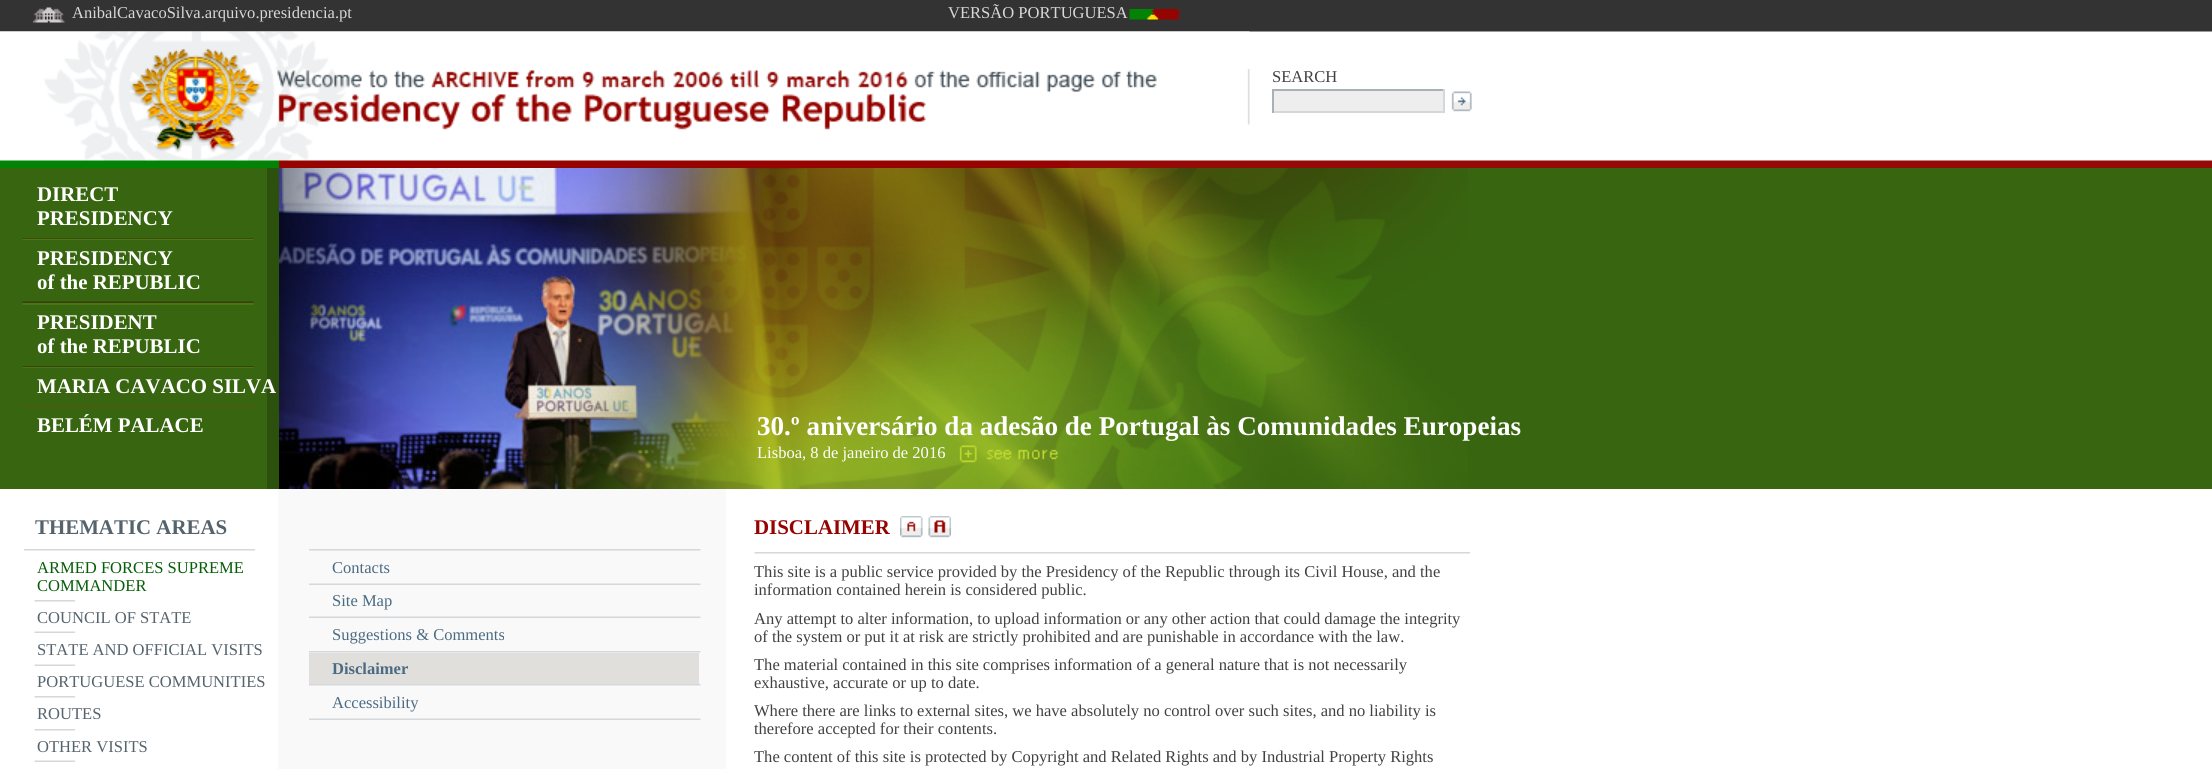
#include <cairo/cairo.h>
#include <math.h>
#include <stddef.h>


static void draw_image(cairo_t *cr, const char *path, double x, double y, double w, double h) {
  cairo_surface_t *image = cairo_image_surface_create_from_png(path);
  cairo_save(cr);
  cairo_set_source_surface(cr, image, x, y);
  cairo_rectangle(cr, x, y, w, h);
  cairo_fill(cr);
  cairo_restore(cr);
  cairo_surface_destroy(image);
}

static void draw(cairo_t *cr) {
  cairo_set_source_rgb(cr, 51 / 255.0, 51 / 255.0, 51 / 255.0);
  cairo_paint(cr);
  draw_image(cr, "images/1.png", 33, 7, 32, 16);
  draw_image(cr, "images/2.png", 1129, 9, 50, 11);
  draw_image(cr, "images/3.png", 0, 31, 2212, 137);
  draw_image(cr, "images/4.png", 0, 31, 1250, 137);
  cairo_set_source_rgb(cr, 238 / 255.0, 238 / 255.0, 238 / 255.0);
  cairo_rectangle(cr, 1274, 91, 169, 20);
  cairo_fill(cr);
  cairo_set_source_rgb(cr, 168 / 255.0, 177 / 255.0, 182 / 255.0);
  cairo_rectangle(cr, 1272, 89, 173, 2);
  cairo_fill(cr);
  cairo_set_source_rgb(cr, 212 / 255.0, 216 / 255.0, 218 / 255.0);
  cairo_rectangle(cr, 1443, 89, 2, 24);
  cairo_fill(cr);
  cairo_rectangle(cr, 1272, 111, 173, 2);
  cairo_fill(cr);
  cairo_set_source_rgb(cr, 168 / 255.0, 177 / 255.0, 182 / 255.0);
  cairo_rectangle(cr, 1272, 89, 2, 24);
  cairo_fill(cr);
  draw_image(cr, "images/5.png", 1451, 91, 21, 21);
  cairo_set_source_rgb(cr, 56 / 255.0, 102 / 255.0, 16 / 255.0);
  cairo_rectangle(cr, 0, 168, 2212, 321);
  cairo_fill(cr);
  cairo_set_source_rgb(cr, 44 / 255.0, 81 / 255.0, 12 / 255.0);
  cairo_rectangle(cr, 267, 168, 12, 321);
  cairo_fill(cr);
  draw_image(cr, "images/6.png", 22, 238, 232, 2);
  draw_image(cr, "images/7.png", 22, 301, 232, 4);
  draw_image(cr, "images/8.png", 22, 366, 232, 2);
  cairo_set_source_rgb(cr, 69 / 255.0, 94 / 255.0, 16 / 255.0);
  cairo_rectangle(cr, 22, 405, 232, 3);
  cairo_fill(cr);
  draw_image(cr, "images/9.png", 279, 168, 482, 321);
  draw_image(cr, "images/10.png", 279, 168, 1189, 321);
  draw_image(cr, "images/11.png", 959, 445, 99, 18);
  cairo_set_source_rgb(cr, 1, 1, 1);
  cairo_rectangle(cr, 0, 489, 2212, 280);
  cairo_fill(cr);
  cairo_set_source_rgb(cr, 249 / 255.0, 249 / 255.0, 249 / 255.0);
  cairo_rectangle(cr, 278, 489, 448, 280);
  cairo_fill(cr);
  draw_image(cr, "images/12.png", 24, 549, 231, 2);
  draw_image(cr, "images/13.png", 34, 600, 42, 2);
  draw_image(cr, "images/14.png", 34, 631, 42, 2);
  draw_image(cr, "images/14.png", 34, 664, 42, 2);
  draw_image(cr, "images/13.png", 34, 696, 42, 2);
  draw_image(cr, "images/13.png", 34, 729, 42, 2);
  draw_image(cr, "images/14.png", 34, 760, 42, 2);
  draw_image(cr, "images/15.png", 309, 549, 392, 2);
  draw_image(cr, "images/16.png", 309, 583, 392, 2);
  draw_image(cr, "images/16.png", 309, 616, 392, 2);
  draw_image(cr, "images/15.png", 309, 651, 392, 2);
  cairo_set_source_rgb(cr, 225 / 255.0, 223 / 255.0, 220 / 255.0);
  cairo_rectangle(cr, 309, 653, 390, 31);
  cairo_fill(cr);
  draw_image(cr, "images/15.png", 309, 684, 392, 2);
  draw_image(cr, "images/16.png", 309, 718, 392, 2);
  draw_image(cr, "images/17.png", 900, 516, 23, 22);
  draw_image(cr, "images/18.png", 928, 516, 23, 22);
  draw_image(cr, "images/19.png", 754, 552, 716, 2);
  cairo_select_font_face(cr, "Liberation Serif", CAIRO_FONT_SLANT_NORMAL, CAIRO_FONT_WEIGHT_NORMAL);
  cairo_set_font_size(cr, 16.55);
  cairo_set_source_rgb(cr, 216 / 255.0, 216 / 255.0, 216 / 255.0);
  cairo_move_to(cr, 72, 18);
  cairo_show_text(cr, "AnibalCavacoSilva.arquivo.presidencia.pt");
  cairo_move_to(cr, 948, 18);
  cairo_show_text(cr, "VERSÃO PORTUGUESA");
  cairo_set_source_rgb(cr, 65 / 255.0, 65 / 255.0, 65 / 255.0);
  cairo_move_to(cr, 1272, 82);
  cairo_show_text(cr, "SEARCH");
  cairo_select_font_face(cr, "Liberation Serif", CAIRO_FONT_SLANT_NORMAL, CAIRO_FONT_WEIGHT_BOLD);
  cairo_set_font_size(cr, 20.9);
  cairo_set_source_rgb(cr, 1, 1, 1);
  cairo_move_to(cr, 37, 201);
  cairo_show_text(cr, "DIRECT");
  cairo_move_to(cr, 37, 225);
  cairo_show_text(cr, "PRESIDENCY");
  cairo_move_to(cr, 37, 265);
  cairo_show_text(cr, "PRESIDENCY");
  cairo_move_to(cr, 37, 289);
  cairo_show_text(cr, "of the REPUBLIC");
  cairo_move_to(cr, 37, 329);
  cairo_show_text(cr, "PRESIDENT");
  cairo_move_to(cr, 37, 353);
  cairo_show_text(cr, "of the REPUBLIC");
  cairo_move_to(cr, 37, 393);
  cairo_show_text(cr, "MARIA CAVACO SILVA");
  cairo_move_to(cr, 37, 432);
  cairo_show_text(cr, "BELÉM PALACE");
  cairo_set_font_size(cr, 27.1);
  cairo_move_to(cr, 757, 435);
  cairo_show_text(cr, "30.º aniversário da adesão de Portugal às Comunidades Europeias");
  cairo_select_font_face(cr, "Liberation Serif", CAIRO_FONT_SLANT_NORMAL, CAIRO_FONT_WEIGHT_NORMAL);
  cairo_set_font_size(cr, 16.55);
  cairo_move_to(cr, 757, 458);
  cairo_show_text(cr, "Lisboa, 8 de janeiro de 2016");
  cairo_select_font_face(cr, "Liberation Serif", CAIRO_FONT_SLANT_NORMAL, CAIRO_FONT_WEIGHT_BOLD);
  cairo_set_font_size(cr, 20.9);
  cairo_set_source_rgb(cr, 85 / 255.0, 99 / 255.0, 109 / 255.0);
  cairo_move_to(cr, 35, 534);
  cairo_show_text(cr, "THEMATIC AREAS");
  cairo_select_font_face(cr, "Liberation Serif", CAIRO_FONT_SLANT_NORMAL, CAIRO_FONT_WEIGHT_NORMAL);
  cairo_set_font_size(cr, 16.55);
  cairo_set_source_rgb(cr, 5 / 255.0, 93 / 255.0, 7 / 255.0);
  cairo_move_to(cr, 37, 573);
  cairo_show_text(cr, "ARMED FORCES SUPREME");
  cairo_move_to(cr, 37, 591);
  cairo_show_text(cr, "COMMANDER");
  cairo_set_source_rgb(cr, 85 / 255.0, 99 / 255.0, 109 / 255.0);
  cairo_move_to(cr, 37, 623);
  cairo_show_text(cr, "COUNCIL OF STATE");
  cairo_move_to(cr, 37, 655);
  cairo_show_text(cr, "STATE AND OFFICIAL VISITS");
  cairo_move_to(cr, 37, 687);
  cairo_show_text(cr, "PORTUGUESE COMMUNITIES");
  cairo_move_to(cr, 37, 719);
  cairo_show_text(cr, "ROUTES");
  cairo_move_to(cr, 37, 752);
  cairo_show_text(cr, "OTHER VISITS");
  cairo_set_source_rgb(cr, 75 / 255.0, 107 / 255.0, 131 / 255.0);
  cairo_move_to(cr, 332, 573);
  cairo_show_text(cr, "Contacts");
  cairo_move_to(cr, 332, 606);
  cairo_show_text(cr, "Site Map");
  cairo_move_to(cr, 332, 640);
  cairo_show_text(cr, "Suggestions & Comments");
  cairo_select_font_face(cr, "Liberation Serif", CAIRO_FONT_SLANT_NORMAL, CAIRO_FONT_WEIGHT_BOLD);
  cairo_move_to(cr, 332, 674);
  cairo_show_text(cr, "Disclaimer");
  cairo_select_font_face(cr, "Liberation Serif", CAIRO_FONT_SLANT_NORMAL, CAIRO_FONT_WEIGHT_NORMAL);
  cairo_move_to(cr, 332, 708);
  cairo_show_text(cr, "Accessibility");
  cairo_select_font_face(cr, "Liberation Serif", CAIRO_FONT_SLANT_NORMAL, CAIRO_FONT_WEIGHT_BOLD);
  cairo_set_font_size(cr, 20.9);
  cairo_set_source_rgb(cr, 149 / 255.0, 4 / 255.0, 0);
  cairo_move_to(cr, 754, 534);
  cairo_show_text(cr, "DISCLAIMER");
  cairo_select_font_face(cr, "Liberation Serif", CAIRO_FONT_SLANT_NORMAL, CAIRO_FONT_WEIGHT_NORMAL);
  cairo_set_font_size(cr, 16.55);
  cairo_set_source_rgb(cr, 65 / 255.0, 65 / 255.0, 65 / 255.0);
  cairo_move_to(cr, 754, 577);
  cairo_show_text(cr, "This site is a public service provided by the Presidency of the Republic through its Civil House, and the");
  cairo_move_to(cr, 754, 595);
  cairo_show_text(cr, "information contained herein is considered public.");
  cairo_move_to(cr, 754, 624);
  cairo_show_text(cr, "Any attempt to alter information, to upload information or any other action that could damage the integrity");
  cairo_move_to(cr, 754, 642);
  cairo_show_text(cr, "of the system or put it at risk are strictly prohibited and are punishable in accordance with the law.");
  cairo_move_to(cr, 754, 670);
  cairo_show_text(cr, "The material contained in this site comprises information of a general nature that is not necessarily");
  cairo_move_to(cr, 754, 688);
  cairo_show_text(cr, "exhaustive, accurate or up to date.");
  cairo_move_to(cr, 754, 716);
  cairo_show_text(cr, "Where there are links to external sites, we have absolutely no control over such sites, and no liability is");
  cairo_move_to(cr, 754, 734);
  cairo_show_text(cr, "therefore accepted for their contents.");
  cairo_move_to(cr, 754, 762);
  cairo_show_text(cr, "The content of this site is protected by Copyright and Related Rights and by Industrial Property Rights");
}

int main(void) {
  cairo_surface_t *surface = cairo_image_surface_create(CAIRO_FORMAT_RGB24, 2212, 769);
  cairo_t *cr = cairo_create(surface);
  cairo_font_options_t *options = cairo_font_options_create();
  cairo_font_options_set_hint_metrics(options, CAIRO_HINT_METRICS_OFF);
  cairo_font_options_set_hint_style(options, CAIRO_HINT_STYLE_NONE);
  cairo_set_font_options(cr, options);
  cairo_set_miter_limit(cr, 4);
  draw(cr);
  cairo_surface_write_to_png(surface, "out.png");
  cairo_font_options_destroy(options);
  cairo_destroy(cr);
  cairo_surface_destroy(surface);
  return 0;
}
